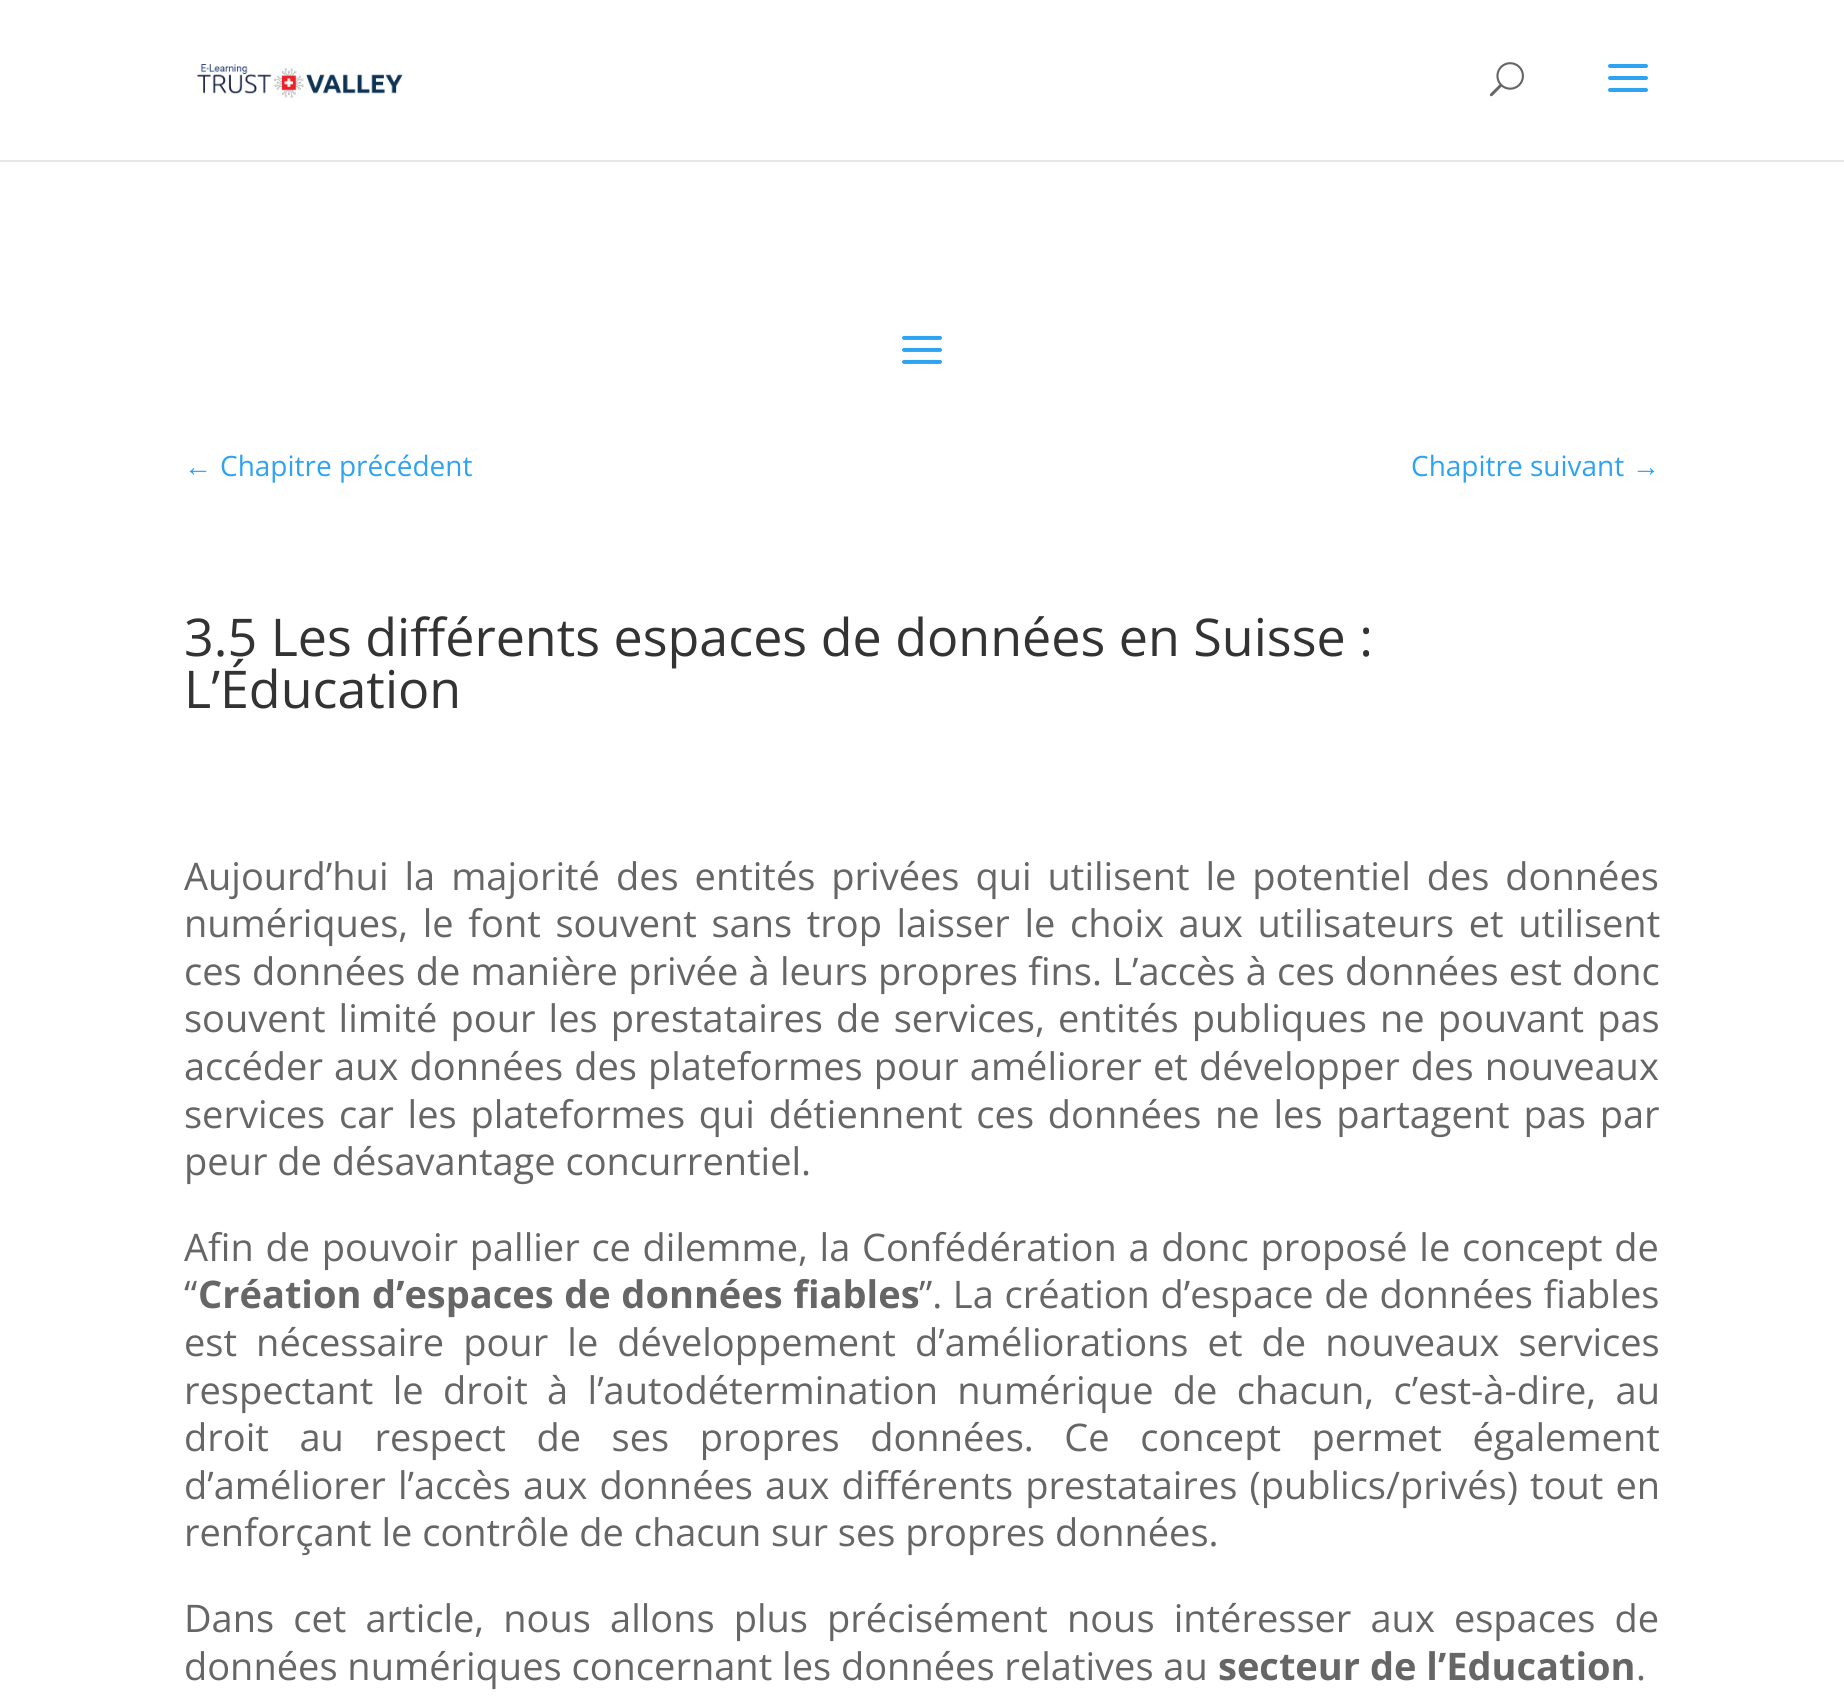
#include <cairo/cairo.h>
#include <math.h>
#include <stddef.h>


static void draw_spaced(cairo_t *cr, double x, double y, const char *s, double letter, double word) {
  cairo_move_to(cr, x, y);
  while (*s) {
    char ch[5] = {0};
    int n = 0;
    do ch[n++] = *s++; while ((*s & 0xC0) == 0x80);
    cairo_show_text(cr, ch);
    cairo_rel_move_to(cr, letter + word * (*ch == ' '), 0);
  }
}

static void draw_image(cairo_t *cr, const char *path, double x, double y, double w, double h) {
  cairo_surface_t *image = cairo_image_surface_create_from_png(path);
  cairo_save(cr);
  cairo_set_source_surface(cr, image, x, y);
  cairo_rectangle(cr, x, y, w, h);
  cairo_fill(cr);
  cairo_restore(cr);
  cairo_surface_destroy(image);
}

static void draw(cairo_t *cr) {
  cairo_set_source_rgb(cr, 1, 1, 1);
  cairo_paint(cr);
  cairo_set_source_rgb(cr, 230 / 255.0, 230 / 255.0, 230 / 255.0);
  cairo_rectangle(cr, 0, 160, 1844, 2);
  cairo_fill(cr);
  draw_image(cr, "images/1.png", 197, 64, 206, 34);
  draw_image(cr, "images/2.png", 1489, 62, 35, 35);
  draw_image(cr, "images/3.png", 1608, 64, 40, 28);
  draw_image(cr, "images/4.png", 902, 335, 40, 29);
  cairo_select_font_face(cr, "Liberation Sans", CAIRO_FONT_SLANT_NORMAL, CAIRO_FONT_WEIGHT_NORMAL);
  cairo_set_font_size(cr, 28);
  cairo_set_source_rgb(cr, 46 / 255.0, 163 / 255.0, 242 / 255.0);
  cairo_move_to(cr, 184, 476);
  cairo_show_text(cr, "←");
  cairo_select_font_face(cr, "Open Sans", CAIRO_FONT_SLANT_NORMAL, CAIRO_FONT_WEIGHT_NORMAL);
  cairo_move_to(cr, 220, 476);
  cairo_show_text(cr, "Chapitre précédent");
  cairo_move_to(cr, 1411, 476);
  cairo_show_text(cr, "Chapitre suivant");
  cairo_select_font_face(cr, "Liberation Sans", CAIRO_FONT_SLANT_NORMAL, CAIRO_FONT_WEIGHT_NORMAL);
  cairo_move_to(cr, 1632, 476);
  cairo_show_text(cr, "→");
  cairo_select_font_face(cr, "Open Sans", CAIRO_FONT_SLANT_NORMAL, CAIRO_FONT_WEIGHT_NORMAL);
  cairo_set_font_size(cr, 52);
  cairo_set_source_rgb(cr, 51 / 255.0, 51 / 255.0, 51 / 255.0);
  cairo_move_to(cr, 184, 656);
  cairo_show_text(cr, "3.5 Les différents espaces de données en Suisse :");
  cairo_move_to(cr, 184, 708);
  cairo_show_text(cr, "L’Éducation");
  cairo_set_font_size(cr, 38);
  cairo_set_source_rgb(cr, 102 / 255.0, 102 / 255.0, 102 / 255.0);
  draw_spaced(cr, 184, 890, "Aujourd’hui la majorité des entités privées qui utilisent le potentiel des données", 0, 6.1);
  draw_spaced(cr, 184, 937, "numériques, le font souvent sans trop laisser le choix aux utilisateurs et utilisent", 0, 4.75);
  draw_spaced(cr, 184, 985, "ces données de manière privée à leurs propres fins. L’accès à ces données est donc", 0, 0.4);
  draw_spaced(cr, 184, 1032, "souvent limité pour les prestataires de services, entités publiques ne pouvant pas", 0, 3.25);
  draw_spaced(cr, 184, 1080, "accéder aux données des plateformes pour améliorer et développer des nouveaux", 0, 1.25);
  draw_spaced(cr, 184, 1128, "services car les plateformes qui détiennent ces données ne les partagent pas par", 0, 3.9);
  cairo_move_to(cr, 184, 1175);
  cairo_show_text(cr, "peur de désavantage concurrentiel.");
  draw_spaced(cr, 184, 1261, "Afin de pouvoir pallier ce dilemme, la Confédération a donc proposé le concept de", 0, 1.8);
  cairo_move_to(cr, 184, 1308);
  cairo_show_text(cr, "“");
  cairo_select_font_face(cr, "Open Sans", CAIRO_FONT_SLANT_NORMAL, CAIRO_FONT_WEIGHT_BOLD);
  draw_spaced(cr, 198, 1308, "Création d’espaces de données fiables", 0, 0.75);
  cairo_select_font_face(cr, "Open Sans", CAIRO_FONT_SLANT_NORMAL, CAIRO_FONT_WEIGHT_NORMAL);
  draw_spaced(cr, 919, 1308, "”. La création d’espace de données fiables", 0, 0.75);
  draw_spaced(cr, 184, 1356, "est nécessaire pour le développement d’améliorations et de nouveaux services", 0, 9.25);
  draw_spaced(cr, 184, 1404, "respectant le droit à l’autodétermination numérique de chacun, c’est-à-dire, au", 0, 9.5);
  draw_spaced(cr, 184, 1451, "droit au respect de ses propres données. Ce concept permet également", 0, 20.75);
  draw_spaced(cr, 184, 1499, "d’améliorer l’accès aux données aux différents prestataires (publics/privés) tout en", 0, 2.25);
  cairo_move_to(cr, 184, 1546);
  cairo_show_text(cr, "renforçant le contrôle de chacun sur ses propres données.");
  draw_spaced(cr, 184, 1632, "Dans cet article, nous allons plus précisément nous intéresser aux espaces de", 0, 9.25);
  cairo_move_to(cr, 184, 1680);
  cairo_show_text(cr, "données numériques concernant les données relatives au");
  cairo_select_font_face(cr, "Open Sans", CAIRO_FONT_SLANT_NORMAL, CAIRO_FONT_WEIGHT_BOLD);
  cairo_move_to(cr, 1218, 1680);
  cairo_show_text(cr, "secteur de l’Education");
  cairo_select_font_face(cr, "Open Sans", CAIRO_FONT_SLANT_NORMAL, CAIRO_FONT_WEIGHT_NORMAL);
  cairo_move_to(cr, 1636, 1680);
  cairo_show_text(cr, ".");
}

int main(void) {
  cairo_surface_t *surface = cairo_image_surface_create(CAIRO_FORMAT_RGB24, 1844, 1696);
  cairo_t *cr = cairo_create(surface);
  cairo_font_options_t *options = cairo_font_options_create();
  cairo_font_options_set_hint_metrics(options, CAIRO_HINT_METRICS_OFF);
  cairo_font_options_set_hint_style(options, CAIRO_HINT_STYLE_NONE);
  cairo_set_font_options(cr, options);
  cairo_set_miter_limit(cr, 4);
  draw(cr);
  cairo_surface_write_to_png(surface, "out.png");
  cairo_font_options_destroy(options);
  cairo_destroy(cr);
  cairo_surface_destroy(surface);
  return 0;
}
